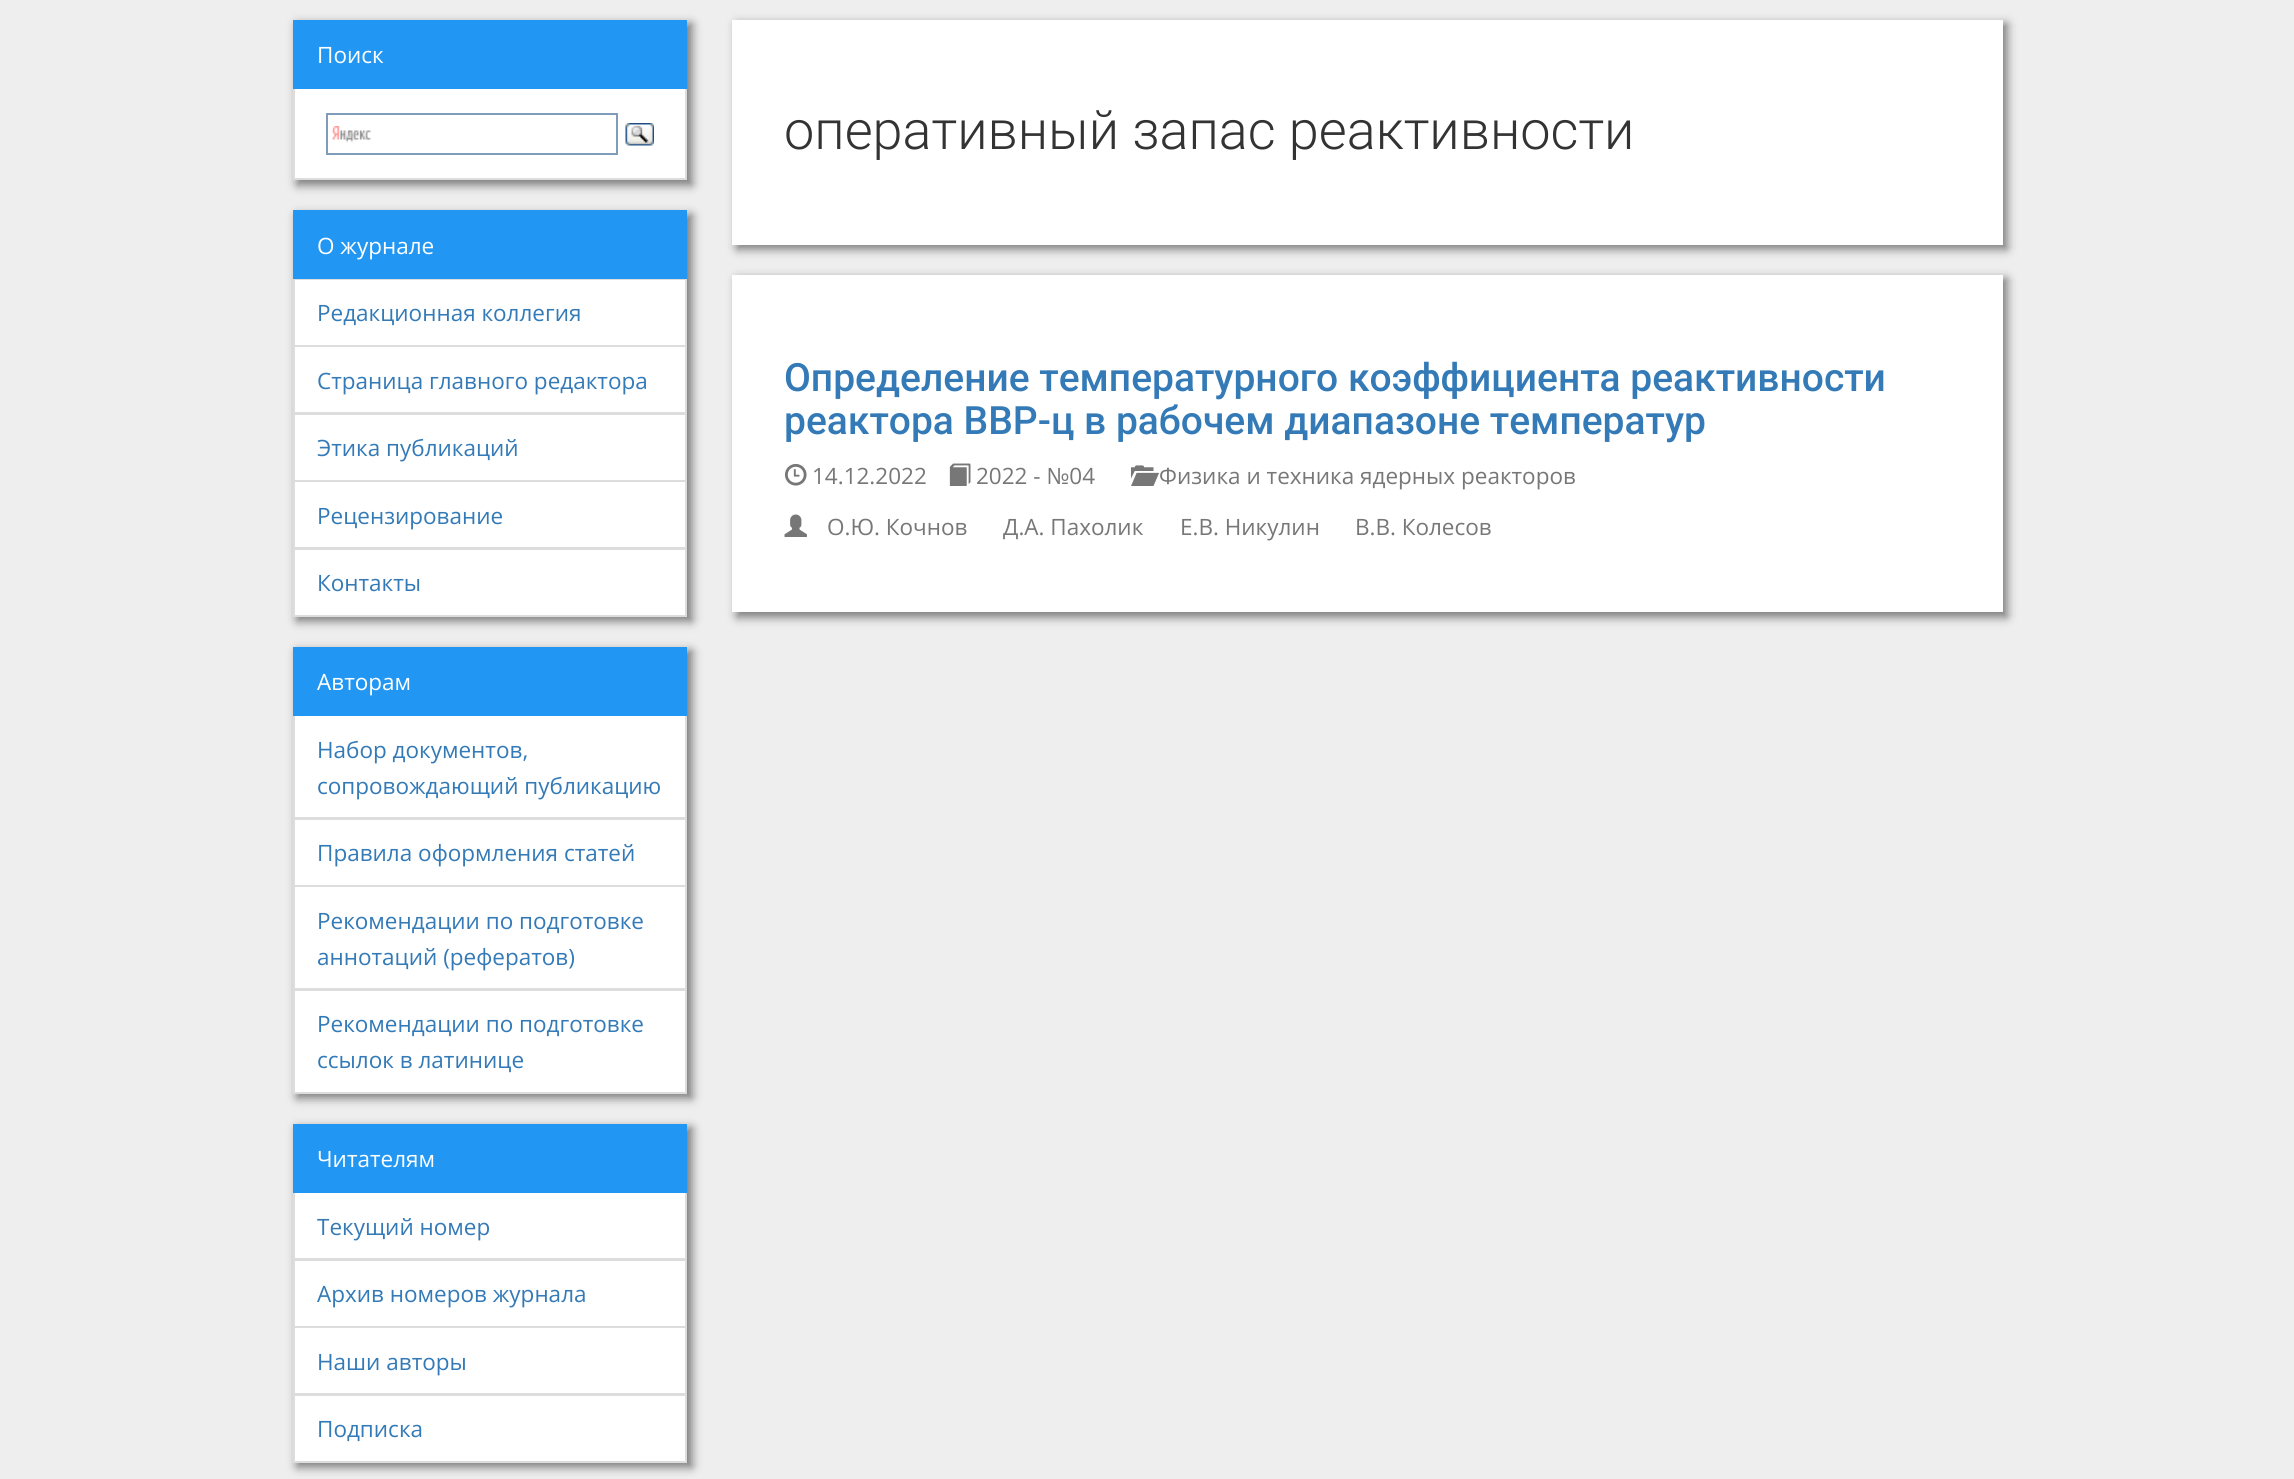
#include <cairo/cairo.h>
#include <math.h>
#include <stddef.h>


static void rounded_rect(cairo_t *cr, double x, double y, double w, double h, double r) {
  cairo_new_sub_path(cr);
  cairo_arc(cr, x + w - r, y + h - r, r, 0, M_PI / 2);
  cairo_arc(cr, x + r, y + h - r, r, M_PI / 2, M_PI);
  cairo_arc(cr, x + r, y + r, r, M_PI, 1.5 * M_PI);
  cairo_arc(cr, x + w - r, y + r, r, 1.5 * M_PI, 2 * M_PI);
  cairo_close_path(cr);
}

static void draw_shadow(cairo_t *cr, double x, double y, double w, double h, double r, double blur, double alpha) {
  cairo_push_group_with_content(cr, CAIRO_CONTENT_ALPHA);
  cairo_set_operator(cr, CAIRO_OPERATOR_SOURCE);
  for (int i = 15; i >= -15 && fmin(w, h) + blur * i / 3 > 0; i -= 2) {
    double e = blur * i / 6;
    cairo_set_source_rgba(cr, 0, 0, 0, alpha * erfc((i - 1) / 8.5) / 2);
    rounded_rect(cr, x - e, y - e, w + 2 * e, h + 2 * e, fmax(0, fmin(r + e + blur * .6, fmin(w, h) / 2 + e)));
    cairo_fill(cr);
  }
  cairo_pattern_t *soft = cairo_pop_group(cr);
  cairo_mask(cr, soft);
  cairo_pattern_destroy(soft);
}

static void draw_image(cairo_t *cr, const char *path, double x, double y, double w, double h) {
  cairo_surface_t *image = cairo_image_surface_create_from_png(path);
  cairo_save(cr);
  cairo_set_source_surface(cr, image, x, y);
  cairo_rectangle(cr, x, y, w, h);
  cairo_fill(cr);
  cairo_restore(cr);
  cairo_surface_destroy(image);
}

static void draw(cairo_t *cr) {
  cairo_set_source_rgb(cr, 238 / 255.0, 238 / 255.0, 238 / 255.0);
  cairo_paint(cr);
  cairo_set_source_rgb(cr, 0, 0, 0);
  draw_shadow(cr, 297, 24, 395, 161, 0, 5, 0.5);
  cairo_set_source_rgb(cr, 1, 1, 1);
  cairo_rectangle(cr, 294, 88, 392, 91);
  cairo_fill_preserve(cr);
  cairo_set_source_rgb(cr, 221 / 255.0, 221 / 255.0, 221 / 255.0);
  cairo_stroke(cr);
  cairo_set_source_rgb(cr, 33 / 255.0, 150 / 255.0, 243 / 255.0);
  cairo_rectangle(cr, 293, 20, 394, 69);
  cairo_fill(cr);
  draw_image(cr, "images/1.png", 331, 126, 40, 17);
  cairo_rectangle(cr, 327, 114, 290, 40);
  cairo_set_source_rgb(cr, 127 / 255.0, 157 / 255.0, 185 / 255.0);
  cairo_stroke(cr);
  draw_image(cr, "images/2.png", 625, 123, 29, 23);
  cairo_set_source_rgb(cr, 0, 0, 0);
  draw_shadow(cr, 297, 215, 395, 406, 0, 5, 0.5);
  cairo_set_source_rgb(cr, 1, 1, 1);
  cairo_rectangle(cr, 294, 279, 392, 67);
  cairo_fill_preserve(cr);
  cairo_set_source_rgb(cr, 221 / 255.0, 221 / 255.0, 221 / 255.0);
  cairo_stroke(cr);
  cairo_set_source_rgb(cr, 33 / 255.0, 150 / 255.0, 243 / 255.0);
  cairo_rectangle(cr, 293, 210, 394, 69);
  cairo_fill(cr);
  cairo_set_source_rgb(cr, 1, 1, 1);
  cairo_rectangle(cr, 294, 346, 392, 67);
  cairo_fill_preserve(cr);
  cairo_set_source_rgb(cr, 221 / 255.0, 221 / 255.0, 221 / 255.0);
  cairo_stroke(cr);
  cairo_set_source_rgb(cr, 1, 1, 1);
  cairo_rectangle(cr, 294, 414, 392, 67);
  cairo_fill_preserve(cr);
  cairo_set_source_rgb(cr, 221 / 255.0, 221 / 255.0, 221 / 255.0);
  cairo_stroke(cr);
  cairo_set_source_rgb(cr, 1, 1, 1);
  cairo_rectangle(cr, 294, 481, 392, 67);
  cairo_fill_preserve(cr);
  cairo_set_source_rgb(cr, 221 / 255.0, 221 / 255.0, 221 / 255.0);
  cairo_stroke(cr);
  cairo_set_source_rgb(cr, 1, 1, 1);
  cairo_rectangle(cr, 294, 549, 392, 67);
  cairo_fill_preserve(cr);
  cairo_set_source_rgb(cr, 221 / 255.0, 221 / 255.0, 221 / 255.0);
  cairo_stroke(cr);
  cairo_set_source_rgb(cr, 0, 0, 0);
  draw_shadow(cr, 297, 651, 395, 447, 0, 5, 0.5);
  cairo_set_source_rgb(cr, 1, 1, 1);
  cairo_rectangle(cr, 294, 715, 392, 103);
  cairo_fill_preserve(cr);
  cairo_set_source_rgb(cr, 221 / 255.0, 221 / 255.0, 221 / 255.0);
  cairo_stroke(cr);
  cairo_set_source_rgb(cr, 33 / 255.0, 150 / 255.0, 243 / 255.0);
  cairo_rectangle(cr, 293, 647, 394, 69);
  cairo_fill(cr);
  cairo_set_source_rgb(cr, 1, 1, 1);
  cairo_rectangle(cr, 294, 819, 392, 67);
  cairo_fill_preserve(cr);
  cairo_set_source_rgb(cr, 221 / 255.0, 221 / 255.0, 221 / 255.0);
  cairo_stroke(cr);
  cairo_set_source_rgb(cr, 1, 1, 1);
  cairo_rectangle(cr, 294, 886, 392, 103);
  cairo_fill_preserve(cr);
  cairo_set_source_rgb(cr, 221 / 255.0, 221 / 255.0, 221 / 255.0);
  cairo_stroke(cr);
  cairo_set_source_rgb(cr, 1, 1, 1);
  cairo_rectangle(cr, 294, 990, 392, 103);
  cairo_fill_preserve(cr);
  cairo_set_source_rgb(cr, 221 / 255.0, 221 / 255.0, 221 / 255.0);
  cairo_stroke(cr);
  cairo_set_source_rgb(cr, 0, 0, 0);
  draw_shadow(cr, 297, 1128, 395, 339, 0, 5, 0.5);
  cairo_set_source_rgb(cr, 1, 1, 1);
  cairo_rectangle(cr, 294, 1192, 392, 67);
  cairo_fill_preserve(cr);
  cairo_set_source_rgb(cr, 221 / 255.0, 221 / 255.0, 221 / 255.0);
  cairo_stroke(cr);
  cairo_set_source_rgb(cr, 33 / 255.0, 150 / 255.0, 243 / 255.0);
  cairo_rectangle(cr, 293, 1124, 394, 69);
  cairo_fill(cr);
  cairo_set_source_rgb(cr, 1, 1, 1);
  cairo_rectangle(cr, 294, 1260, 392, 67);
  cairo_fill_preserve(cr);
  cairo_set_source_rgb(cr, 221 / 255.0, 221 / 255.0, 221 / 255.0);
  cairo_stroke(cr);
  cairo_set_source_rgb(cr, 1, 1, 1);
  cairo_rectangle(cr, 294, 1327, 392, 67);
  cairo_fill_preserve(cr);
  cairo_set_source_rgb(cr, 221 / 255.0, 221 / 255.0, 221 / 255.0);
  cairo_stroke(cr);
  cairo_set_source_rgb(cr, 1, 1, 1);
  cairo_rectangle(cr, 294, 1395, 392, 67);
  cairo_fill_preserve(cr);
  cairo_set_source_rgb(cr, 221 / 255.0, 221 / 255.0, 221 / 255.0);
  cairo_stroke(cr);
  cairo_set_source_rgb(cr, 0, 0, 0);
  draw_shadow(cr, 737, 24, 1270, 225, 0, 5, 0.5);
  cairo_set_source_rgb(cr, 1, 1, 1);
  cairo_rectangle(cr, 732, 20, 1271, 225);
  cairo_fill(cr);
  cairo_set_source_rgb(cr, 0, 0, 0);
  draw_shadow(cr, 737, 279, 1270, 338, 0, 5, 0.5);
  cairo_set_source_rgb(cr, 1, 1, 1);
  cairo_rectangle(cr, 732, 275, 1271, 337);
  cairo_fill(cr);
  draw_image(cr, "images/3.png", 784, 463, 23, 23);
  draw_image(cr, "images/4.png", 949, 463, 22, 23);
  draw_image(cr, "images/5.png", 1131, 465, 28, 21);
  draw_image(cr, "images/6.png", 784, 514, 23, 23);
  cairo_select_font_face(cr, "Open Sans", CAIRO_FONT_SLANT_NORMAL, CAIRO_FONT_WEIGHT_NORMAL);
  cairo_set_font_size(cr, 22.5);
  cairo_move_to(cr, 317, 63);
  cairo_show_text(cr, "Поиск");
  cairo_move_to(cr, 317, 254);
  cairo_show_text(cr, "О журнале");
  cairo_set_source_rgb(cr, 51 / 255.0, 122 / 255.0, 183 / 255.0);
  cairo_move_to(cr, 317, 321);
  cairo_show_text(cr, "Редакционная коллегия");
  cairo_move_to(cr, 317, 389);
  cairo_show_text(cr, "Страница главного редактора");
  cairo_move_to(cr, 317, 456);
  cairo_show_text(cr, "Этика публикаций");
  cairo_move_to(cr, 317, 524);
  cairo_show_text(cr, "Рецензирование");
  cairo_move_to(cr, 317, 591);
  cairo_show_text(cr, "Контакты");
  cairo_set_source_rgb(cr, 1, 1, 1);
  cairo_move_to(cr, 317, 690);
  cairo_show_text(cr, "Авторам");
  cairo_set_source_rgb(cr, 51 / 255.0, 122 / 255.0, 183 / 255.0);
  cairo_move_to(cr, 317, 758);
  cairo_show_text(cr, "Набор документов,");
  cairo_move_to(cr, 317, 794);
  cairo_show_text(cr, "сопровождающий публикацию");
  cairo_move_to(cr, 317, 861);
  cairo_show_text(cr, "Правила оформления статей");
  cairo_move_to(cr, 317, 929);
  cairo_show_text(cr, "Рекомендации по подготовке");
  cairo_move_to(cr, 317, 965);
  cairo_show_text(cr, "аннотаций (рефератов)");
  cairo_move_to(cr, 317, 1032);
  cairo_show_text(cr, "Рекомендации по подготовке");
  cairo_move_to(cr, 317, 1068);
  cairo_show_text(cr, "ссылок в латинице");
  cairo_set_source_rgb(cr, 1, 1, 1);
  cairo_move_to(cr, 317, 1167);
  cairo_show_text(cr, "Читателям");
  cairo_set_source_rgb(cr, 51 / 255.0, 122 / 255.0, 183 / 255.0);
  cairo_move_to(cr, 317, 1235);
  cairo_show_text(cr, "Текущий номер");
  cairo_move_to(cr, 317, 1302);
  cairo_show_text(cr, "Архив номеров журнала");
  cairo_move_to(cr, 317, 1370);
  cairo_show_text(cr, "Наши авторы");
  cairo_move_to(cr, 317, 1437);
  cairo_show_text(cr, "Подписка");
  cairo_select_font_face(cr, "Roboto Light", CAIRO_FONT_SLANT_NORMAL, CAIRO_FONT_WEIGHT_NORMAL);
  cairo_set_font_size(cr, 54);
  cairo_set_source_rgb(cr, 51 / 255.0, 51 / 255.0, 51 / 255.0);
  cairo_move_to(cr, 784, 149);
  cairo_show_text(cr, "оперативный запас реактивности");
  cairo_select_font_face(cr, "Roboto Medium", CAIRO_FONT_SLANT_NORMAL, CAIRO_FONT_WEIGHT_NORMAL);
  cairo_set_font_size(cr, 39);
  cairo_set_source_rgb(cr, 51 / 255.0, 122 / 255.0, 183 / 255.0);
  cairo_move_to(cr, 784, 391);
  cairo_show_text(cr, "Определение температурного коэффициента реактивности");
  cairo_move_to(cr, 784, 434);
  cairo_show_text(cr, "реактора ВВР-ц в рабочем диапазоне температур");
  cairo_select_font_face(cr, "Open Sans", CAIRO_FONT_SLANT_NORMAL, CAIRO_FONT_WEIGHT_NORMAL);
  cairo_set_font_size(cr, 22.5);
  cairo_set_source_rgb(cr, 119 / 255.0, 119 / 255.0, 119 / 255.0);
  cairo_move_to(cr, 812, 484);
  cairo_show_text(cr, "14.12.2022");
  cairo_move_to(cr, 976, 484);
  cairo_show_text(cr, "2022 - №04");
  cairo_move_to(cr, 1159, 484);
  cairo_show_text(cr, "Физика и техника ядерных реакторов");
  cairo_move_to(cr, 827, 535);
  cairo_show_text(cr, "О.Ю. Кочнов");
  cairo_move_to(cr, 1003, 535);
  cairo_show_text(cr, "Д.А. Пахолик");
  cairo_move_to(cr, 1180, 535);
  cairo_show_text(cr, "Е.В. Никулин");
  cairo_move_to(cr, 1355, 535);
  cairo_show_text(cr, "В.В. Колесов");
}

int main(void) {
  cairo_surface_t *surface = cairo_image_surface_create(CAIRO_FORMAT_RGB24, 2294, 1479);
  cairo_t *cr = cairo_create(surface);
  cairo_font_options_t *options = cairo_font_options_create();
  cairo_font_options_set_hint_metrics(options, CAIRO_HINT_METRICS_OFF);
  cairo_font_options_set_hint_style(options, CAIRO_HINT_STYLE_NONE);
  cairo_set_font_options(cr, options);
  cairo_set_miter_limit(cr, 4);
  draw(cr);
  cairo_surface_write_to_png(surface, "out.png");
  cairo_font_options_destroy(options);
  cairo_destroy(cr);
  cairo_surface_destroy(surface);
  return 0;
}
